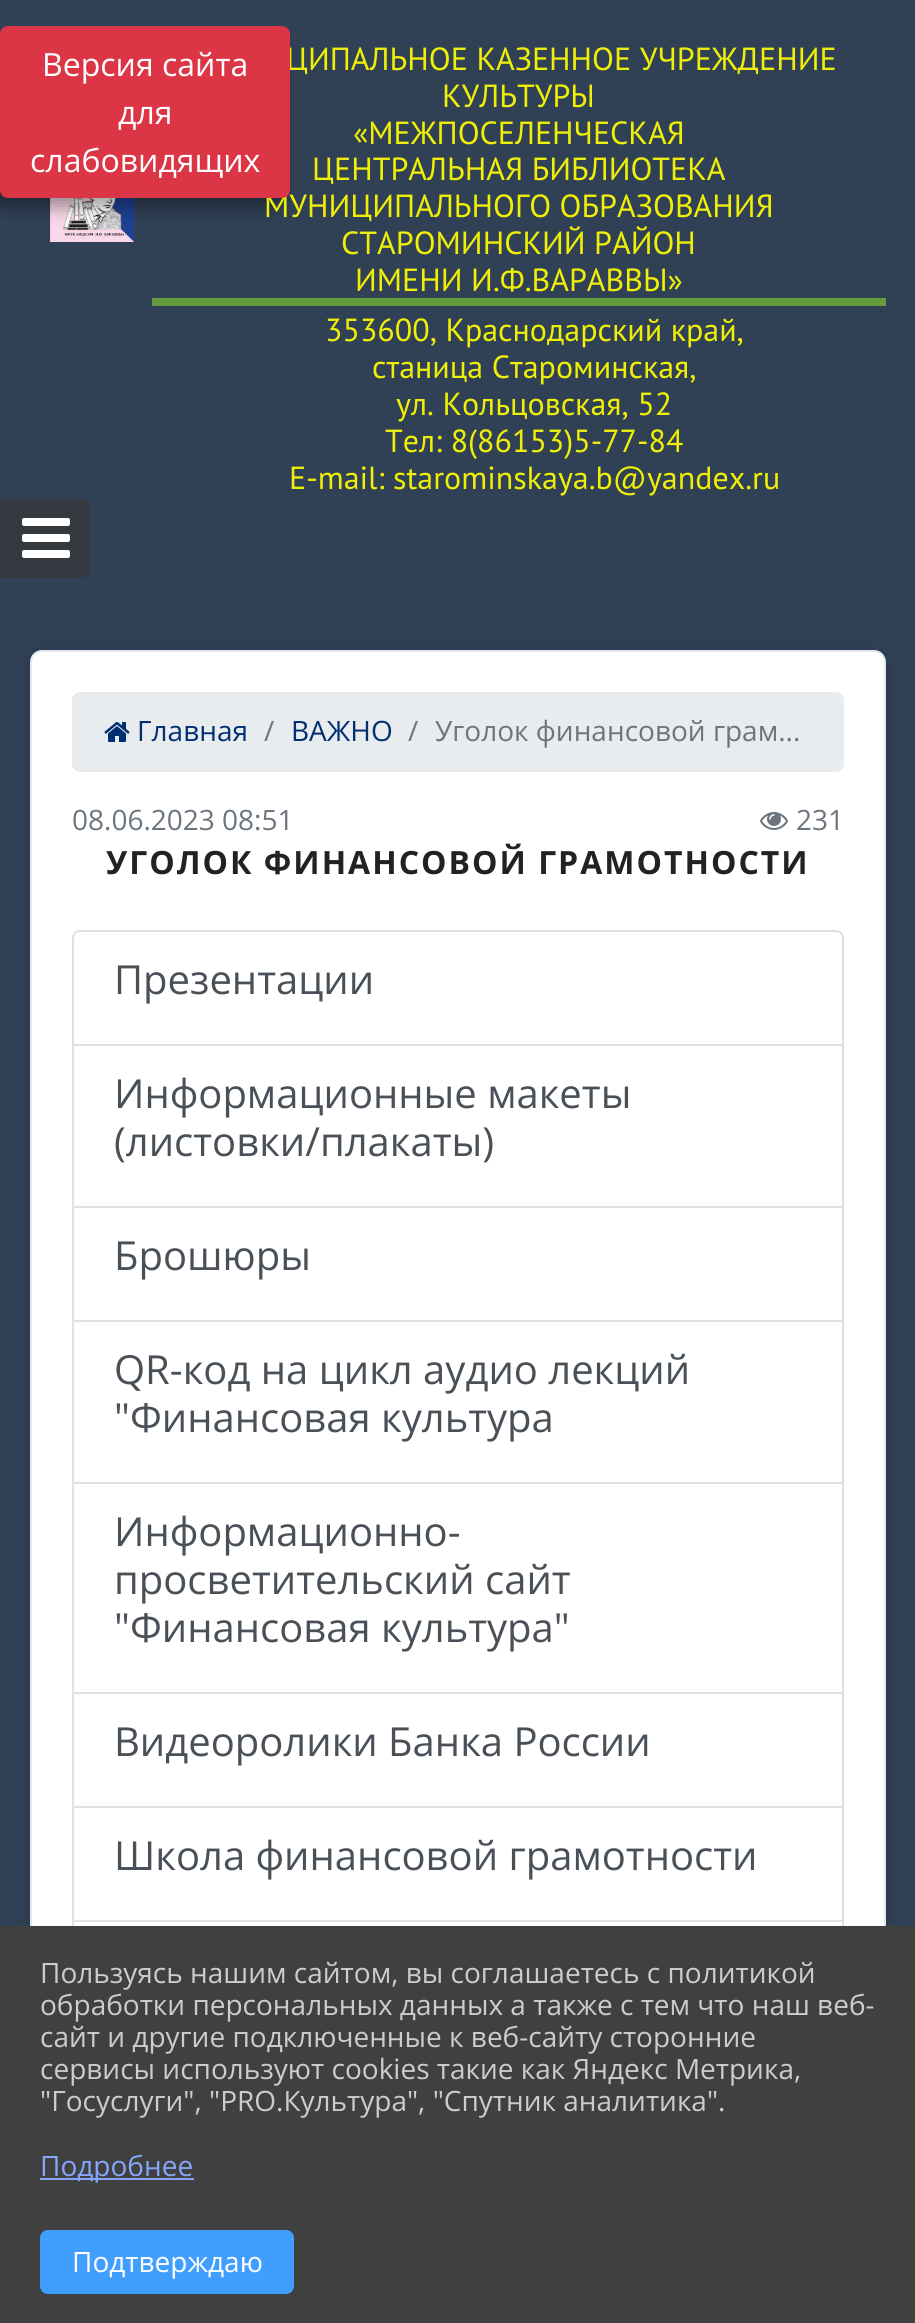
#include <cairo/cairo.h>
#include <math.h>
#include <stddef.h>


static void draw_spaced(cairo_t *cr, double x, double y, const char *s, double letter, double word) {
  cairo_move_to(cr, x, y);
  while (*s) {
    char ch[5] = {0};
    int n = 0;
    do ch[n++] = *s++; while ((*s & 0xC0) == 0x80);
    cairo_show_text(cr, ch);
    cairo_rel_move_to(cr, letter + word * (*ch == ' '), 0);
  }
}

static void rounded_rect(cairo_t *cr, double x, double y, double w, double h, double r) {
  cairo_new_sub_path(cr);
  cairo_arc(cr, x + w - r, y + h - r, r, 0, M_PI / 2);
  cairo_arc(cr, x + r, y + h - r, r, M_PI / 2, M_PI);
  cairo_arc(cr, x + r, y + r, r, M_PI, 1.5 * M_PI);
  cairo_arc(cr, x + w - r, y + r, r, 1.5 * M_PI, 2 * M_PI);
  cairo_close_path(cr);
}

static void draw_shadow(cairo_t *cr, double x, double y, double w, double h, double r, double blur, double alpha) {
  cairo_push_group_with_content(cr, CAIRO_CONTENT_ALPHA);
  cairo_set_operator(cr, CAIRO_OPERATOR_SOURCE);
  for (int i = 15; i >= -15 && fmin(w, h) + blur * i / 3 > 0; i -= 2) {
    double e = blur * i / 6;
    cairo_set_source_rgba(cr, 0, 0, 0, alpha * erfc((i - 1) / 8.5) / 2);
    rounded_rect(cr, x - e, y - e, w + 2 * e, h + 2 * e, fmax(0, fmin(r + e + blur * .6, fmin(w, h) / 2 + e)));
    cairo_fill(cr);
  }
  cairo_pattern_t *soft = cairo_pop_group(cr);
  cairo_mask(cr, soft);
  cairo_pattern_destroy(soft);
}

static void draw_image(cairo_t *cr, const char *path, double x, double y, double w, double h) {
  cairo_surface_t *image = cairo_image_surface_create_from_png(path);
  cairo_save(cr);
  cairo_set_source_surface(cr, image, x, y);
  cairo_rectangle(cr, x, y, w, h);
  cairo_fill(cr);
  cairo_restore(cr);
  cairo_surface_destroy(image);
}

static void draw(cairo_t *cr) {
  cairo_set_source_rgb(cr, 48 / 255.0, 65 / 255.0, 86 / 255.0);
  cairo_paint(cr);
  draw_image(cr, "images/1.png", 50, 198, 84, 44);
  cairo_set_source_rgb(cr, 101 / 255.0, 157 / 255.0, 62 / 255.0);
  cairo_rectangle(cr, 152, 298, 734, 8);
  cairo_fill(cr);
  cairo_set_source_rgb(cr, 0, 0, 0);
  draw_shadow(cr, 30, 650, 856, 1556, 12, 12, 0.12);
  cairo_set_source_rgb(cr, 1, 1, 1);
  rounded_rect(cr, 31, 651, 854, 1554, 11);
  cairo_fill_preserve(cr);
  cairo_set_source_rgb(cr, 228 / 255.0, 231 / 255.0, 237 / 255.0);
  cairo_stroke(cr);
  cairo_set_source_rgb(cr, 233 / 255.0, 236 / 255.0, 239 / 255.0);
  rounded_rect(cr, 72, 692, 772, 80, 8);
  cairo_fill(cr);
  draw_image(cr, "images/2.png", 104, 722, 26, 20);
  draw_image(cr, "images/3.png", 760, 812, 28, 18);
  cairo_new_path(cr);
  cairo_move_to(cr, 80, 931);
  cairo_line_to(cr, 836, 931);
  cairo_curve_to(cr, 840, 931, 843, 934, 843, 938);
  cairo_line_to(cr, 843, 1045);
  cairo_line_to(cr, 73, 1045);
  cairo_line_to(cr, 73, 938);
  cairo_curve_to(cr, 73, 934, 76, 931, 80, 931);
  cairo_close_path(cr);
  cairo_set_source_rgb(cr, 223 / 255.0, 223 / 255.0, 223 / 255.0);
  cairo_stroke(cr);
  cairo_new_path(cr);
  cairo_move_to(cr, 844, 1046);
  cairo_line_to(cr, 844, 1208);
  cairo_line_to(cr, 842, 1206);
  cairo_line_to(cr, 842, 1046);
  cairo_close_path(cr);
  cairo_fill(cr);
  cairo_set_source_rgba(cr, 0, 0, 0, 0.12);
  cairo_new_path(cr);
  cairo_move_to(cr, 844, 1208);
  cairo_line_to(cr, 72, 1208);
  cairo_line_to(cr, 74, 1206);
  cairo_line_to(cr, 842, 1206);
  cairo_close_path(cr);
  cairo_fill(cr);
  cairo_new_path(cr);
  cairo_move_to(cr, 72, 1208);
  cairo_line_to(cr, 72, 1046);
  cairo_line_to(cr, 74, 1046);
  cairo_line_to(cr, 74, 1206);
  cairo_close_path(cr);
  cairo_fill(cr);
  cairo_set_source_rgb(cr, 223 / 255.0, 223 / 255.0, 223 / 255.0);
  cairo_new_path(cr);
  cairo_move_to(cr, 844, 1208);
  cairo_line_to(cr, 844, 1322);
  cairo_line_to(cr, 842, 1320);
  cairo_line_to(cr, 842, 1208);
  cairo_close_path(cr);
  cairo_fill(cr);
  cairo_set_source_rgba(cr, 0, 0, 0, 0.12);
  cairo_new_path(cr);
  cairo_move_to(cr, 844, 1322);
  cairo_line_to(cr, 72, 1322);
  cairo_line_to(cr, 74, 1320);
  cairo_line_to(cr, 842, 1320);
  cairo_close_path(cr);
  cairo_fill(cr);
  cairo_new_path(cr);
  cairo_move_to(cr, 72, 1322);
  cairo_line_to(cr, 72, 1208);
  cairo_line_to(cr, 74, 1208);
  cairo_line_to(cr, 74, 1320);
  cairo_close_path(cr);
  cairo_fill(cr);
  cairo_set_source_rgb(cr, 223 / 255.0, 223 / 255.0, 223 / 255.0);
  cairo_new_path(cr);
  cairo_move_to(cr, 844, 1322);
  cairo_line_to(cr, 844, 1484);
  cairo_line_to(cr, 842, 1482);
  cairo_line_to(cr, 842, 1322);
  cairo_close_path(cr);
  cairo_fill(cr);
  cairo_set_source_rgba(cr, 0, 0, 0, 0.12);
  cairo_new_path(cr);
  cairo_move_to(cr, 844, 1484);
  cairo_line_to(cr, 72, 1484);
  cairo_line_to(cr, 74, 1482);
  cairo_line_to(cr, 842, 1482);
  cairo_close_path(cr);
  cairo_fill(cr);
  cairo_new_path(cr);
  cairo_move_to(cr, 72, 1484);
  cairo_line_to(cr, 72, 1322);
  cairo_line_to(cr, 74, 1322);
  cairo_line_to(cr, 74, 1482);
  cairo_close_path(cr);
  cairo_fill(cr);
  cairo_set_source_rgb(cr, 223 / 255.0, 223 / 255.0, 223 / 255.0);
  cairo_new_path(cr);
  cairo_move_to(cr, 844, 1484);
  cairo_line_to(cr, 844, 1694);
  cairo_line_to(cr, 842, 1692);
  cairo_line_to(cr, 842, 1484);
  cairo_close_path(cr);
  cairo_fill(cr);
  cairo_set_source_rgba(cr, 0, 0, 0, 0.12);
  cairo_new_path(cr);
  cairo_move_to(cr, 844, 1694);
  cairo_line_to(cr, 72, 1694);
  cairo_line_to(cr, 74, 1692);
  cairo_line_to(cr, 842, 1692);
  cairo_close_path(cr);
  cairo_fill(cr);
  cairo_new_path(cr);
  cairo_move_to(cr, 72, 1694);
  cairo_line_to(cr, 72, 1484);
  cairo_line_to(cr, 74, 1484);
  cairo_line_to(cr, 74, 1692);
  cairo_close_path(cr);
  cairo_fill(cr);
  cairo_set_source_rgb(cr, 223 / 255.0, 223 / 255.0, 223 / 255.0);
  cairo_new_path(cr);
  cairo_move_to(cr, 844, 1694);
  cairo_line_to(cr, 844, 1808);
  cairo_line_to(cr, 842, 1806);
  cairo_line_to(cr, 842, 1694);
  cairo_close_path(cr);
  cairo_fill(cr);
  cairo_set_source_rgba(cr, 0, 0, 0, 0.12);
  cairo_new_path(cr);
  cairo_move_to(cr, 844, 1808);
  cairo_line_to(cr, 72, 1808);
  cairo_line_to(cr, 74, 1806);
  cairo_line_to(cr, 842, 1806);
  cairo_close_path(cr);
  cairo_fill(cr);
  cairo_new_path(cr);
  cairo_move_to(cr, 72, 1808);
  cairo_line_to(cr, 72, 1694);
  cairo_line_to(cr, 74, 1694);
  cairo_line_to(cr, 74, 1806);
  cairo_close_path(cr);
  cairo_fill(cr);
  cairo_set_source_rgb(cr, 223 / 255.0, 223 / 255.0, 223 / 255.0);
  cairo_new_path(cr);
  cairo_move_to(cr, 844, 1808);
  cairo_line_to(cr, 844, 1922);
  cairo_line_to(cr, 842, 1920);
  cairo_line_to(cr, 842, 1808);
  cairo_close_path(cr);
  cairo_fill(cr);
  cairo_set_source_rgba(cr, 0, 0, 0, 0.12);
  cairo_new_path(cr);
  cairo_move_to(cr, 844, 1922);
  cairo_line_to(cr, 72, 1922);
  cairo_line_to(cr, 74, 1920);
  cairo_line_to(cr, 842, 1920);
  cairo_close_path(cr);
  cairo_fill(cr);
  cairo_new_path(cr);
  cairo_move_to(cr, 72, 1922);
  cairo_line_to(cr, 72, 1808);
  cairo_line_to(cr, 74, 1808);
  cairo_line_to(cr, 74, 1920);
  cairo_close_path(cr);
  cairo_fill(cr);
  cairo_set_source_rgb(cr, 223 / 255.0, 223 / 255.0, 223 / 255.0);
  cairo_set_fill_rule(cr, CAIRO_FILL_RULE_EVEN_ODD);
  cairo_new_path(cr);
  cairo_move_to(cr, 72, 1922);
  cairo_line_to(cr, 844, 1922);
  cairo_line_to(cr, 844, 2076);
  cairo_curve_to(cr, 844, 2080, 840, 2084, 836, 2084);
  cairo_line_to(cr, 80, 2084);
  cairo_curve_to(cr, 76, 2084, 72, 2080, 72, 2076);
  cairo_close_path(cr);
  cairo_move_to(cr, 74, 1922);
  cairo_line_to(cr, 842, 1922);
  cairo_line_to(cr, 842, 2076);
  cairo_curve_to(cr, 842, 2079, 839, 2082, 836, 2082);
  cairo_line_to(cr, 80, 2082);
  cairo_curve_to(cr, 77, 2082, 74, 2079, 74, 2076);
  cairo_close_path(cr);
  cairo_fill(cr);
  cairo_set_source_rgb(cr, 0, 0, 0);
  draw_shadow(cr, -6, 40, 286, 168, 6, 8, 0.35);
  cairo_set_source_rgb(cr, 52 / 255.0, 58 / 255.0, 64 / 255.0);
  cairo_new_path(cr);
  cairo_move_to(cr, 1, 501);
  cairo_line_to(cr, 82, 501);
  cairo_curve_to(cr, 86, 501, 89, 504, 89, 508);
  cairo_line_to(cr, 89, 570);
  cairo_curve_to(cr, 89, 574, 86, 577, 82, 577);
  cairo_line_to(cr, 1, 577);
  cairo_close_path(cr);
  cairo_fill_preserve(cr);
  cairo_stroke(cr);
  draw_image(cr, "images/4.png", 22, 518, 48, 40);
  cairo_set_source_rgb(cr, 64 / 255.0, 64 / 255.0, 64 / 255.0);
  cairo_rectangle(cr, 0, 1926, 915, 397);
  cairo_fill(cr);
  cairo_set_source_rgb(cr, 133 / 255.0, 166 / 255.0, 249 / 255.0);
  cairo_rectangle(cr, 40, 2178, 154, 2);
  cairo_fill(cr);
  cairo_set_source_rgb(cr, 64 / 255.0, 158 / 255.0, 1);
  rounded_rect(cr, 41, 2231, 252, 62, 7);
  cairo_fill_preserve(cr);
  cairo_stroke(cr);
  cairo_select_font_face(cr, "PT Sans", CAIRO_FONT_SLANT_NORMAL, CAIRO_FONT_WEIGHT_NORMAL);
  cairo_set_font_size(cr, 32);
  cairo_set_source_rgb(cr, 240 / 255.0, 239 / 255.0, 6 / 255.0);
  cairo_move_to(cr, 286, 70);
  cairo_show_text(cr, "ЦИПАЛЬНОЕ КАЗЕННОЕ УЧРЕЖДЕНИЕ");
  cairo_move_to(cr, 442, 107);
  cairo_show_text(cr, "КУЛЬТУРЫ");
  cairo_move_to(cr, 353, 144);
  cairo_show_text(cr, "«МЕЖПОСЕЛЕНЧЕСКАЯ");
  cairo_move_to(cr, 312, 180);
  cairo_show_text(cr, "ЦЕНТРАЛЬНАЯ БИБЛИОТЕКА");
  cairo_move_to(cr, 264, 217);
  cairo_show_text(cr, "МУНИЦИПАЛЬНОГО ОБРАЗОВАНИЯ");
  cairo_move_to(cr, 341, 254);
  cairo_show_text(cr, "СТАРОМИНСКИЙ РАЙОН");
  cairo_move_to(cr, 355, 291);
  cairo_show_text(cr, "ИМЕНИ И.Ф.ВАРАВВЫ»");
  cairo_move_to(cr, 325, 341);
  cairo_show_text(cr, "353600, Краснодарский край,");
  cairo_move_to(cr, 372, 378);
  cairo_show_text(cr, "станица Староминская,");
  cairo_move_to(cr, 396, 415);
  cairo_show_text(cr, "ул. Кольцовская, 52");
  cairo_move_to(cr, 385, 452);
  cairo_show_text(cr, "Тел: 8(86153)5-77-84");
  cairo_move_to(cr, 289, 489);
  cairo_show_text(cr, "E-mail: starominskaya.b@yandex.ru");
  cairo_select_font_face(cr, "Open Sans", CAIRO_FONT_SLANT_NORMAL, CAIRO_FONT_WEIGHT_NORMAL);
  cairo_set_font_size(cr, 28);
  cairo_set_source_rgb(cr, 0, 47 / 255.0, 114 / 255.0);
  cairo_move_to(cr, 137, 741);
  cairo_show_text(cr, "Главная");
  cairo_set_source_rgb(cr, 108 / 255.0, 117 / 255.0, 125 / 255.0);
  cairo_move_to(cr, 264, 741);
  cairo_show_text(cr, "/");
  cairo_set_source_rgb(cr, 0, 47 / 255.0, 114 / 255.0);
  cairo_move_to(cr, 291, 741);
  cairo_show_text(cr, "ВАЖНО");
  cairo_set_source_rgb(cr, 108 / 255.0, 117 / 255.0, 125 / 255.0);
  cairo_move_to(cr, 408, 741);
  cairo_show_text(cr, "/");
  cairo_move_to(cr, 435, 741);
  cairo_show_text(cr, "Уголок финансовой грам...");
  cairo_move_to(cr, 72, 830);
  cairo_show_text(cr, "08.06.2023 08:51");
  cairo_move_to(cr, 796, 830);
  cairo_show_text(cr, "231");
  cairo_select_font_face(cr, "Open Sans", CAIRO_FONT_SLANT_NORMAL, CAIRO_FONT_WEIGHT_BOLD);
  cairo_set_font_size(cr, 32);
  cairo_set_source_rgb(cr, 34 / 255.0, 34 / 255.0, 34 / 255.0);
  draw_spaced(cr, 106, 874, "УГОЛОК ФИНАНСОВОЙ ГРАМОТНОСТИ", 2, 0);
  cairo_select_font_face(cr, "Open Sans", CAIRO_FONT_SLANT_NORMAL, CAIRO_FONT_WEIGHT_NORMAL);
  cairo_set_font_size(cr, 40);
  cairo_set_source_rgb(cr, 73 / 255.0, 80 / 255.0, 87 / 255.0);
  cairo_move_to(cr, 114, 994);
  cairo_show_text(cr, "Презентации");
  cairo_move_to(cr, 114, 1108);
  cairo_show_text(cr, "Информационные макеты");
  cairo_move_to(cr, 114, 1156);
  cairo_show_text(cr, "(листовки/плакаты)");
  cairo_move_to(cr, 114, 1270);
  cairo_show_text(cr, "Брошюры");
  cairo_move_to(cr, 114, 1384);
  cairo_show_text(cr, "QR-код на цикл аудио лекций");
  cairo_move_to(cr, 114, 1432);
  cairo_show_text(cr, "\"Финансовая культура");
  cairo_move_to(cr, 114, 1546);
  cairo_show_text(cr, "Информационно-");
  cairo_move_to(cr, 114, 1594);
  cairo_show_text(cr, "просветительский сайт");
  cairo_move_to(cr, 114, 1642);
  cairo_show_text(cr, "\"Финансовая культура\"");
  cairo_move_to(cr, 114, 1756);
  cairo_show_text(cr, "Видеоролики Банка России");
  cairo_move_to(cr, 114, 1870);
  cairo_show_text(cr, "Школа финансовой грамотности");
  cairo_set_source_rgb(cr, 220 / 255.0, 53 / 255.0, 69 / 255.0);
  rounded_rect(cr, 1, 27, 288, 170, 7);
  cairo_fill_preserve(cr);
  cairo_stroke(cr);
  cairo_set_font_size(cr, 32);
  cairo_set_source_rgb(cr, 1, 1, 1);
  cairo_move_to(cr, 42, 76);
  cairo_show_text(cr, "Версия сайта");
  cairo_move_to(cr, 118, 124);
  cairo_show_text(cr, "для");
  cairo_move_to(cr, 30, 172);
  cairo_show_text(cr, "слабовидящих");
  cairo_set_font_size(cr, 28);
  cairo_set_source_rgb(cr, 204 / 255.0, 204 / 255.0, 204 / 255.0);
  cairo_move_to(cr, 40, 1983);
  cairo_show_text(cr, "Пользуясь нашим сайтом, вы соглашаетесь с политикой");
  cairo_move_to(cr, 40, 2015);
  cairo_show_text(cr, "обработки персональных данных а также с тем что наш веб-");
  cairo_move_to(cr, 40, 2047);
  cairo_show_text(cr, "сайт и другие подключенные к веб-сайту сторонние");
  cairo_move_to(cr, 40, 2079);
  cairo_show_text(cr, "сервисы используют cookies такие как Яндекс Метрика,");
  cairo_move_to(cr, 40, 2111);
  cairo_show_text(cr, "\"Госуслуги\", \"PRO.Культура\", \"Спутник аналитика\".");
  cairo_set_source_rgb(cr, 133 / 255.0, 166 / 255.0, 249 / 255.0);
  cairo_move_to(cr, 40, 2176);
  cairo_show_text(cr, "Подробнее");
  cairo_set_source_rgb(cr, 1, 1, 1);
  cairo_move_to(cr, 72, 2272);
  cairo_show_text(cr, "Подтверждаю");
}

int main(void) {
  cairo_surface_t *surface = cairo_image_surface_create(CAIRO_FORMAT_RGB24, 915, 2323);
  cairo_t *cr = cairo_create(surface);
  cairo_font_options_t *options = cairo_font_options_create();
  cairo_font_options_set_hint_metrics(options, CAIRO_HINT_METRICS_OFF);
  cairo_font_options_set_hint_style(options, CAIRO_HINT_STYLE_NONE);
  cairo_set_font_options(cr, options);
  cairo_set_miter_limit(cr, 4);
  draw(cr);
  cairo_surface_write_to_png(surface, "out.png");
  cairo_font_options_destroy(options);
  cairo_destroy(cr);
  cairo_surface_destroy(surface);
  return 0;
}
